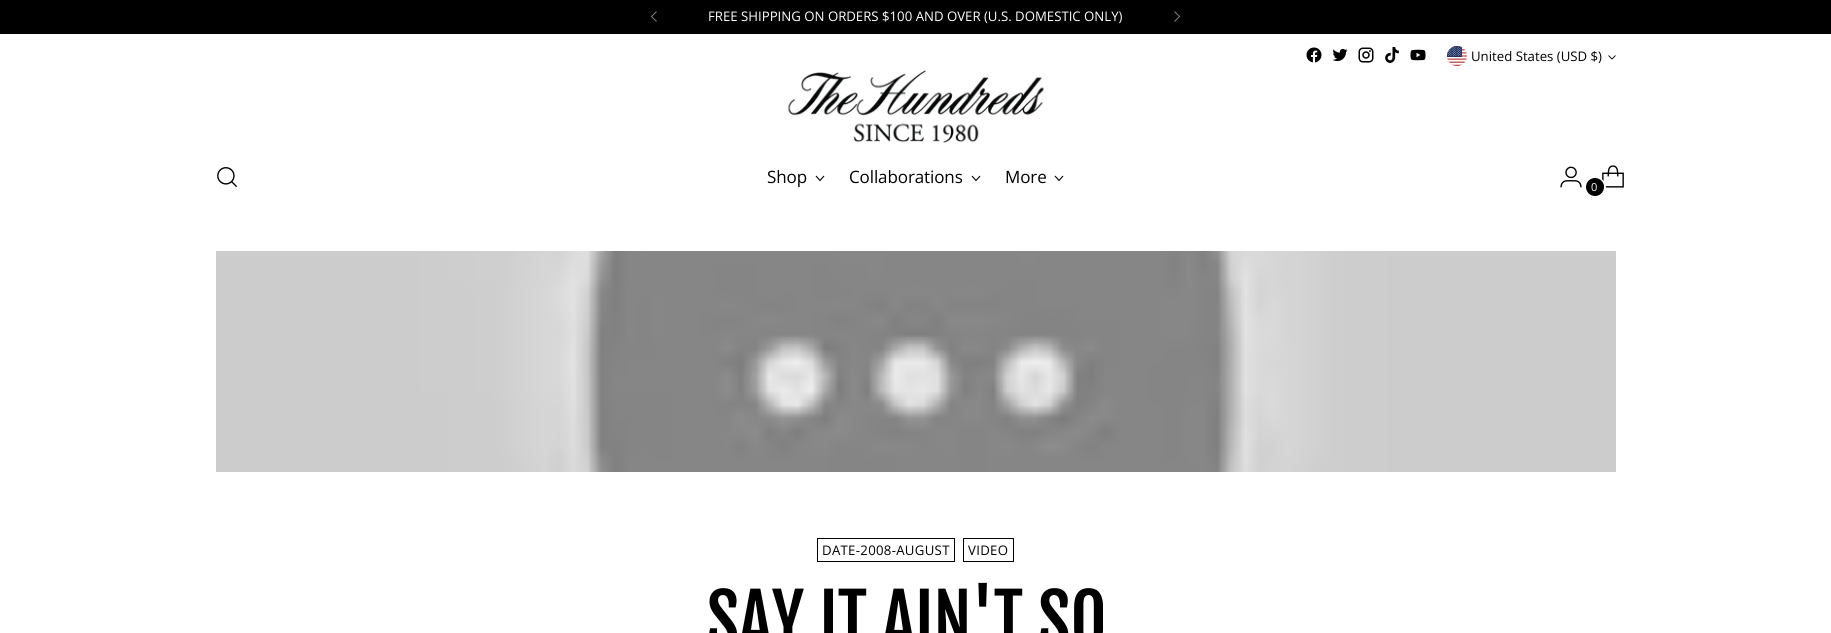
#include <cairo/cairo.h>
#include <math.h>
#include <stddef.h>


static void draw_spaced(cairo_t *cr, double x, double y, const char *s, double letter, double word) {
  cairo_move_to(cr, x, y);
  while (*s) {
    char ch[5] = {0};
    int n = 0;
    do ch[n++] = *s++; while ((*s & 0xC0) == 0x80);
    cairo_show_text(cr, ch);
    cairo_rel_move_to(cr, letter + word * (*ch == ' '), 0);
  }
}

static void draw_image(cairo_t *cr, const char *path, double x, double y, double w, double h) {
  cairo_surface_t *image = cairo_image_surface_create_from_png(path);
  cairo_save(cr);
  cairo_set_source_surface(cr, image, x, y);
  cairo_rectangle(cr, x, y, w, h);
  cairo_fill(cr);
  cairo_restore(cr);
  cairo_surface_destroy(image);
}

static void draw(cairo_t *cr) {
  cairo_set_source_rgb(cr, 1, 1, 1);
  cairo_paint(cr);
  cairo_set_source_rgb(cr, 0, 0, 0);
  cairo_rectangle(cr, 0, 0, 1831, 34);
  cairo_fill(cr);
  cairo_new_path(cr);
  cairo_move_to(cr, 656.5, 11.5);
  cairo_line_to(cr, 651.5, 16.5);
  cairo_line_to(cr, 656.5, 21.5);
  cairo_set_source_rgb(cr, 128 / 255.0, 128 / 255.0, 128 / 255.0);
  cairo_set_line_width(cr, 1);
  cairo_stroke(cr);
  cairo_new_path(cr);
  cairo_move_to(cr, 1174.5, 21.5);
  cairo_line_to(cr, 1179.5, 16.5);
  cairo_line_to(cr, 1174.5, 11.5);
  cairo_stroke(cr);
  draw_image(cr, "images/1.png", 1306, 47, 16, 16);
  draw_image(cr, "images/2.png", 1332, 48, 16, 14);
  draw_image(cr, "images/3.png", 1358, 47, 16, 16);
  draw_image(cr, "images/4.png", 1385, 47, 14, 16);
  draw_image(cr, "images/5.png", 1410, 49, 16, 12);
  draw_image(cr, "images/6.png", 1447, 46, 20, 20);
  cairo_new_path(cr);
  cairo_move_to(cr, 1608.5, 55.5);
  cairo_line_to(cr, 1612, 59);
  cairo_line_to(cr, 1615.5, 55.5);
  cairo_set_source_rgb(cr, 0, 0, 0);
  cairo_set_line_width(cr, 0.9);
  cairo_stroke(cr);
  draw_image(cr, "images/7.png", 787, 70, 257, 73);
  draw_image(cr, "images/8.png", 217, 167, 21, 21);
  cairo_new_path(cr);
  cairo_move_to(cr, 816, 176);
  cairo_line_to(cr, 820, 180.5);
  cairo_line_to(cr, 824, 176);
  cairo_set_line_width(cr, 1.1);
  cairo_stroke(cr);
  cairo_new_path(cr);
  cairo_move_to(cr, 972, 176);
  cairo_line_to(cr, 976, 180.5);
  cairo_line_to(cr, 980, 176);
  cairo_stroke(cr);
  cairo_new_path(cr);
  cairo_move_to(cr, 1055, 176);
  cairo_line_to(cr, 1059, 180.5);
  cairo_line_to(cr, 1063, 176);
  cairo_stroke(cr);
  draw_image(cr, "images/9.png", 1560, 166, 22, 22);
  draw_image(cr, "images/10.png", 1602, 165, 22, 23);
  cairo_arc(cr, 1595.5, 187.5, 9.5, 0, 2 * M_PI);
  cairo_set_source_rgb(cr, 1, 1, 1);
  cairo_set_line_width(cr, 2);
  cairo_stroke(cr);
  cairo_set_source_rgb(cr, 0, 0, 0);
  cairo_arc(cr, 1595, 187, 9, 0, 2 * M_PI);
  cairo_fill(cr);
  draw_image(cr, "images/11.png", 216, 251, 1400, 221);
  cairo_rectangle(cr, 817.5, 538.5, 137, 23);
  cairo_set_line_width(cr, 1);
  cairo_stroke(cr);
  cairo_rectangle(cr, 963.5, 538.5, 50, 23);
  cairo_stroke(cr);
  cairo_select_font_face(cr, "Open Sans", CAIRO_FONT_SLANT_NORMAL, CAIRO_FONT_WEIGHT_NORMAL);
  cairo_set_font_size(cr, 13.2);
  cairo_set_source_rgb(cr, 1, 1, 1);
  cairo_move_to(cr, 708, 21);
  cairo_show_text(cr, "FREE SHIPPING ON ORDERS $100 AND OVER (U.S. DOMESTIC ONLY)");
  cairo_set_source_rgb(cr, 0, 0, 0);
  cairo_move_to(cr, 1471, 61);
  cairo_show_text(cr, "United States (USD $)");
  cairo_set_font_size(cr, 17);
  draw_spaced(cr, 767, 183, "Shop", -0.1, 0);
  cairo_save(cr);
  cairo_rectangle(cr, 765, 143, 301, 68);
  cairo_clip(cr);
  cairo_new_path(cr);
  cairo_move_to(cr, 767.5, 170.5);
  cairo_line_to(cr, 761, 177);
  cairo_line_to(cr, 767.5, 184);
  cairo_set_source_rgb(cr, 1, 1, 1);
  cairo_set_line_width(cr, 1.3);
  cairo_stroke(cr);
  cairo_restore(cr);
  draw_spaced(cr, 849, 183, "Collaborations", -0.1, 0);
  draw_spaced(cr, 1005, 183, "More", -0.1, 0);
  cairo_set_font_size(cr, 11);
  cairo_set_source_rgb(cr, 1, 1, 1);
  cairo_move_to(cr, 1591, 191);
  cairo_show_text(cr, "0");
  cairo_set_font_size(cr, 13.2);
  cairo_set_source_rgb(cr, 0, 0, 0);
  draw_spaced(cr, 822, 555, "DATE-2008-AUGUST", 0.3, 0);
  draw_spaced(cr, 968, 555, "VIDEO", 0.3, 0);
  cairo_select_font_face(cr, "Fjalla One", CAIRO_FONT_SLANT_NORMAL, CAIRO_FONT_WEIGHT_NORMAL);
  cairo_set_font_size(cr, 70);
  cairo_move_to(cr, 707, 647);
  cairo_show_text(cr, "SAY IT AIN'T SO");
}

int main(void) {
  cairo_surface_t *surface = cairo_image_surface_create(CAIRO_FORMAT_RGB24, 1831, 633);
  cairo_t *cr = cairo_create(surface);
  cairo_font_options_t *options = cairo_font_options_create();
  cairo_font_options_set_hint_metrics(options, CAIRO_HINT_METRICS_OFF);
  cairo_font_options_set_hint_style(options, CAIRO_HINT_STYLE_NONE);
  cairo_set_font_options(cr, options);
  cairo_set_miter_limit(cr, 4);
  draw(cr);
  cairo_surface_write_to_png(surface, "out.png");
  cairo_font_options_destroy(options);
  cairo_destroy(cr);
  cairo_surface_destroy(surface);
  return 0;
}
